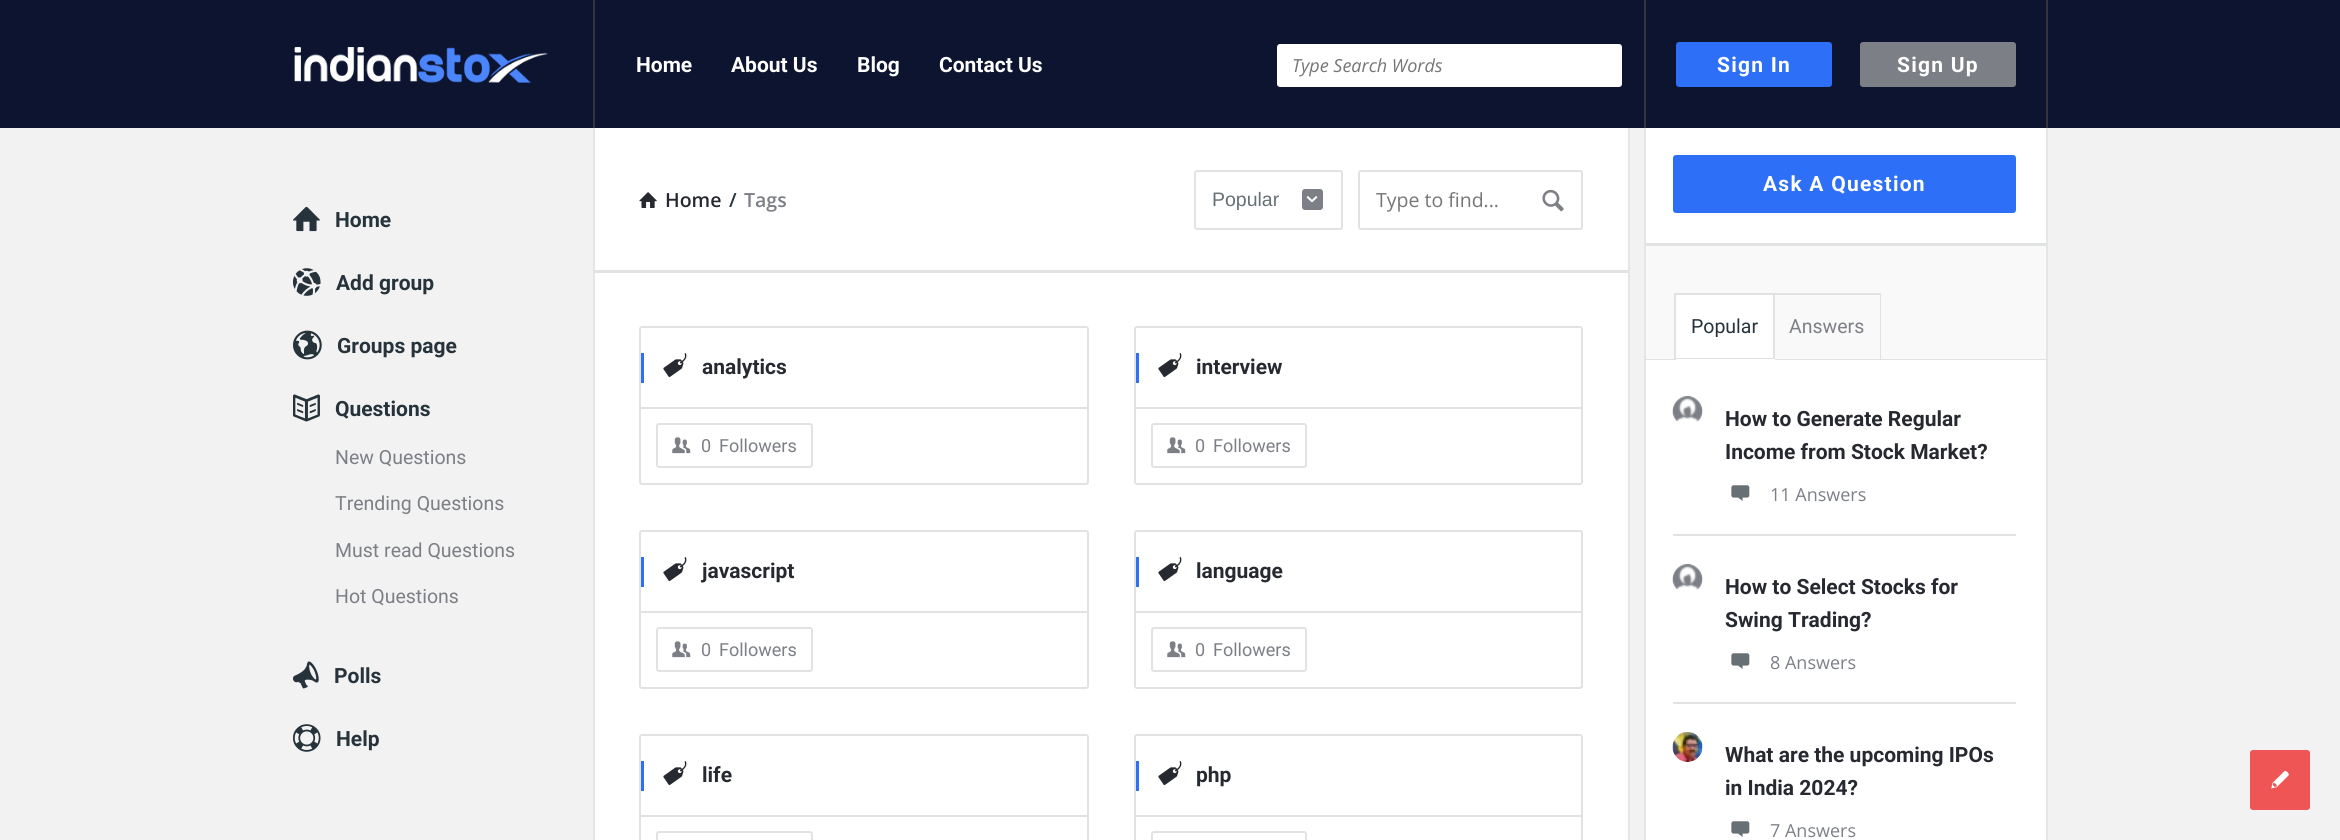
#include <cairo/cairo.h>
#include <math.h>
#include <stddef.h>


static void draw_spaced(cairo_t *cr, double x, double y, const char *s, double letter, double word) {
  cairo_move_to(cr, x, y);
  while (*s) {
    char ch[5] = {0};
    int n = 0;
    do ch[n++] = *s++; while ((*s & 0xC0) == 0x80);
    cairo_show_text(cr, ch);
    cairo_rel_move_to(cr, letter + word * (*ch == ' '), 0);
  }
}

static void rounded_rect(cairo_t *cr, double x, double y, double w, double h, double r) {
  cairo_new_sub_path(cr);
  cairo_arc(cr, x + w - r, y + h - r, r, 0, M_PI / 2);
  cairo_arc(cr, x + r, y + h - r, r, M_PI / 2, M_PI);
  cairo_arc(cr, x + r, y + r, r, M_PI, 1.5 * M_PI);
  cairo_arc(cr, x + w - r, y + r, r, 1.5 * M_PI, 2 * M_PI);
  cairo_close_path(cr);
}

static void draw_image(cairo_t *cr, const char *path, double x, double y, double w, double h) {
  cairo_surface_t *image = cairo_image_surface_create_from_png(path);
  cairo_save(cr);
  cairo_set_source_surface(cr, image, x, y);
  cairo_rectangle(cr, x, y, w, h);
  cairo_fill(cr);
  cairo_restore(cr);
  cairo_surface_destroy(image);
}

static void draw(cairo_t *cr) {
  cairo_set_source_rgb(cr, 242 / 255.0, 242 / 255.0, 242 / 255.0);
  cairo_paint(cr);
  cairo_set_source_rgb(cr, 12 / 255.0, 20 / 255.0, 47 / 255.0);
  cairo_rectangle(cr, 0, 0, 2340, 128);
  cairo_fill(cr);
  cairo_set_source_rgb(cr, 51 / 255.0, 53 / 255.0, 60 / 255.0);
  cairo_rectangle(cr, 593, 0, 2, 128);
  cairo_fill(cr);
  draw_image(cr, "images/1.png", 294, 47, 254, 36);
  cairo_set_source_rgb(cr, 1, 1, 1);
  rounded_rect(cr, 1277, 44, 345, 43, 3);
  cairo_fill(cr);
  cairo_set_source_rgb(cr, 51 / 255.0, 53 / 255.0, 60 / 255.0);
  cairo_rectangle(cr, 2046, 0, 2, 128);
  cairo_fill(cr);
  cairo_rectangle(cr, 1644, 0, 2, 128);
  cairo_fill(cr);
  cairo_set_source_rgb(cr, 45 / 255.0, 111 / 255.0, 247 / 255.0);
  rounded_rect(cr, 1676, 42, 156, 45, 3);
  cairo_fill(cr);
  cairo_set_source_rgb(cr, 124 / 255.0, 127 / 255.0, 133 / 255.0);
  rounded_rect(cr, 1860, 42, 156, 45, 3);
  cairo_fill(cr);
  draw_image(cr, "images/2.png", 293, 206, 27, 26);
  draw_image(cr, "images/3.png", 293, 268, 28, 28);
  draw_image(cr, "images/4.png", 293, 330, 29, 30);
  draw_image(cr, "images/5.png", 293, 394, 27, 28);
  draw_image(cr, "images/6.png", 293, 661, 26, 28);
  draw_image(cr, "images/7.png", 293, 724, 28, 28);
  cairo_set_source_rgb(cr, 1, 1, 1);
  cairo_rectangle(cr, 595, 128, 1033, 712);
  cairo_fill(cr);
  cairo_set_source_rgb(cr, 228 / 255.0, 229 / 255.0, 230 / 255.0);
  cairo_rectangle(cr, 1628, 128, 2, 712);
  cairo_fill(cr);
  cairo_rectangle(cr, 593, 128, 2, 712);
  cairo_fill(cr);
  cairo_set_source_rgb(cr, 225 / 255.0, 227 / 255.0, 227 / 255.0);
  cairo_rectangle(cr, 594, 270, 1034, 3);
  cairo_fill(cr);
  draw_image(cr, "images/8.png", 639, 192, 18, 16);
  rounded_rect(cr, 1195, 171, 147, 58, 2);
  cairo_stroke(cr);
  cairo_set_source_rgb(cr, 124 / 255.0, 127 / 255.0, 133 / 255.0);
  rounded_rect(cr, 1302, 189, 21, 21, 3);
  cairo_fill(cr);
  draw_image(cr, "images/9.png", 1306, 196, 12, 7);
  rounded_rect(cr, 1359, 171, 223, 58, 2);
  cairo_set_source_rgb(cr, 225 / 255.0, 227 / 255.0, 227 / 255.0);
  cairo_stroke(cr);
  draw_image(cr, "images/10.png", 1542, 189, 22, 23);
  rounded_rect(cr, 640, 327, 448, 157, 2);
  cairo_stroke(cr);
  cairo_rectangle(cr, 641, 407, 447, 2);
  cairo_fill(cr);
  cairo_set_source_rgb(cr, 45 / 255.0, 111 / 255.0, 247 / 255.0);
  cairo_rectangle(cr, 641, 353, 3, 30);
  cairo_fill(cr);
  draw_image(cr, "images/11.png", 663, 353, 24, 25);
  rounded_rect(cr, 657, 424, 155, 43, 2);
  cairo_set_source_rgb(cr, 225 / 255.0, 227 / 255.0, 227 / 255.0);
  cairo_stroke(cr);
  draw_image(cr, "images/12.png", 672, 437, 19, 17);
  rounded_rect(cr, 1135, 327, 447, 157, 2);
  cairo_stroke(cr);
  cairo_rectangle(cr, 1136, 407, 445, 2);
  cairo_fill(cr);
  cairo_set_source_rgb(cr, 45 / 255.0, 111 / 255.0, 247 / 255.0);
  cairo_rectangle(cr, 1136, 353, 3, 30);
  cairo_fill(cr);
  draw_image(cr, "images/11.png", 1158, 353, 24, 25);
  rounded_rect(cr, 1152, 424, 154, 43, 2);
  cairo_set_source_rgb(cr, 225 / 255.0, 227 / 255.0, 227 / 255.0);
  cairo_stroke(cr);
  draw_image(cr, "images/12.png", 1167, 437, 19, 17);
  rounded_rect(cr, 640, 531, 448, 157, 2);
  cairo_stroke(cr);
  cairo_rectangle(cr, 641, 611, 447, 2);
  cairo_fill(cr);
  cairo_set_source_rgb(cr, 45 / 255.0, 111 / 255.0, 247 / 255.0);
  cairo_rectangle(cr, 641, 557, 3, 30);
  cairo_fill(cr);
  draw_image(cr, "images/11.png", 663, 557, 24, 25);
  rounded_rect(cr, 657, 628, 155, 43, 2);
  cairo_set_source_rgb(cr, 225 / 255.0, 227 / 255.0, 227 / 255.0);
  cairo_stroke(cr);
  draw_image(cr, "images/12.png", 672, 641, 19, 17);
  rounded_rect(cr, 1135, 531, 447, 157, 2);
  cairo_stroke(cr);
  cairo_rectangle(cr, 1136, 611, 445, 2);
  cairo_fill(cr);
  cairo_set_source_rgb(cr, 45 / 255.0, 111 / 255.0, 247 / 255.0);
  cairo_rectangle(cr, 1136, 557, 3, 30);
  cairo_fill(cr);
  draw_image(cr, "images/11.png", 1158, 557, 24, 25);
  rounded_rect(cr, 1152, 628, 154, 43, 2);
  cairo_set_source_rgb(cr, 225 / 255.0, 227 / 255.0, 227 / 255.0);
  cairo_stroke(cr);
  draw_image(cr, "images/12.png", 1167, 641, 19, 17);
  rounded_rect(cr, 640, 735, 448, 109, 2);
  cairo_stroke(cr);
  cairo_rectangle(cr, 641, 815, 447, 2);
  cairo_fill(cr);
  cairo_set_source_rgb(cr, 45 / 255.0, 111 / 255.0, 247 / 255.0);
  cairo_rectangle(cr, 641, 761, 3, 30);
  cairo_fill(cr);
  draw_image(cr, "images/11.png", 663, 761, 24, 25);
  rounded_rect(cr, 657, 832, 155, 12, 2);
  cairo_set_source_rgb(cr, 225 / 255.0, 227 / 255.0, 227 / 255.0);
  cairo_stroke(cr);
  rounded_rect(cr, 1135, 735, 447, 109, 2);
  cairo_stroke(cr);
  cairo_rectangle(cr, 1136, 815, 445, 2);
  cairo_fill(cr);
  cairo_set_source_rgb(cr, 45 / 255.0, 111 / 255.0, 247 / 255.0);
  cairo_rectangle(cr, 1136, 761, 3, 30);
  cairo_fill(cr);
  draw_image(cr, "images/11.png", 1158, 761, 24, 25);
  rounded_rect(cr, 1152, 832, 154, 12, 2);
  cairo_set_source_rgb(cr, 225 / 255.0, 227 / 255.0, 227 / 255.0);
  cairo_stroke(cr);
  cairo_set_source_rgb(cr, 1, 1, 1);
  cairo_rectangle(cr, 1646, 128, 400, 115);
  cairo_fill(cr);
  cairo_set_source_rgb(cr, 228 / 255.0, 229 / 255.0, 230 / 255.0);
  cairo_rectangle(cr, 2046, 128, 2, 712);
  cairo_fill(cr);
  cairo_rectangle(cr, 1644, 128, 2, 712);
  cairo_fill(cr);
  cairo_set_source_rgb(cr, 225 / 255.0, 227 / 255.0, 227 / 255.0);
  cairo_rectangle(cr, 1646, 243, 400, 3);
  cairo_fill(cr);
  cairo_set_source_rgb(cr, 45 / 255.0, 111 / 255.0, 247 / 255.0);
  rounded_rect(cr, 1673, 155, 343, 58, 3);
  cairo_fill(cr);
  cairo_set_source_rgb(cr, 249 / 255.0, 249 / 255.0, 249 / 255.0);
  cairo_rectangle(cr, 1646, 246, 400, 113);
  cairo_fill(cr);
  cairo_set_source_rgb(cr, 225 / 255.0, 227 / 255.0, 227 / 255.0);
  cairo_rectangle(cr, 1644, 359, 402, 2);
  cairo_fill(cr);
  cairo_set_source_rgb(cr, 1, 1, 1);
  cairo_rectangle(cr, 1675, 294, 99, 65);
  cairo_fill_preserve(cr);
  cairo_set_source_rgb(cr, 225 / 255.0, 227 / 255.0, 227 / 255.0);
  cairo_stroke(cr);
  cairo_set_source_rgb(cr, 1, 1, 1);
  cairo_rectangle(cr, 1676, 359, 99, 1);
  cairo_fill(cr);
  cairo_set_source_rgb(cr, 225 / 255.0, 227 / 255.0, 227 / 255.0);
  cairo_rectangle(cr, 1775, 293, 106, 2);
  cairo_fill(cr);
  cairo_rectangle(cr, 1880, 293, 1, 67);
  cairo_fill(cr);
  cairo_set_source_rgb(cr, 1, 1, 1);
  cairo_rectangle(cr, 1646, 360, 400, 480);
  cairo_fill(cr);
  cairo_set_source_rgb(cr, 225 / 255.0, 227 / 255.0, 227 / 255.0);
  cairo_rectangle(cr, 1673, 534, 343, 2);
  cairo_fill(cr);
  draw_image(cr, "images/13.png", 1672, 396, 31, 26);
  draw_image(cr, "images/14.png", 1731, 485, 19, 16);
  cairo_rectangle(cr, 1673, 702, 343, 2);
  cairo_fill(cr);
  draw_image(cr, "images/13.png", 1672, 564, 31, 26);
  draw_image(cr, "images/14.png", 1731, 653, 19, 16);
  draw_image(cr, "images/15.png", 1672, 732, 31, 30);
  draw_image(cr, "images/14.png", 1731, 821, 19, 16);
  cairo_set_source_rgb(cr, 240 / 255.0, 85 / 255.0, 85 / 255.0);
  rounded_rect(cr, 2250, 750, 60, 60, 3);
  cairo_fill(cr);
  draw_image(cr, "images/16.png", 2271, 770, 18, 19);
  cairo_select_font_face(cr, "Roboto", CAIRO_FONT_SLANT_NORMAL, CAIRO_FONT_WEIGHT_BOLD);
  cairo_set_font_size(cr, 21);
  cairo_set_source_rgb(cr, 1, 1, 1);
  cairo_move_to(cr, 636, 72);
  cairo_show_text(cr, "Home");
  cairo_move_to(cr, 731, 72);
  cairo_show_text(cr, "About Us");
  cairo_move_to(cr, 857, 72);
  cairo_show_text(cr, "Blog");
  cairo_move_to(cr, 939, 72);
  cairo_show_text(cr, "Contact Us");
  cairo_select_font_face(cr, "Open Sans", CAIRO_FONT_SLANT_ITALIC, CAIRO_FONT_WEIGHT_NORMAL);
  cairo_set_font_size(cr, 18);
  cairo_set_source_rgb(cr, 117 / 255.0, 117 / 255.0, 117 / 255.0);
  cairo_move_to(cr, 1292, 72);
  cairo_show_text(cr, "Type Search Words");
  cairo_select_font_face(cr, "Roboto", CAIRO_FONT_SLANT_NORMAL, CAIRO_FONT_WEIGHT_BOLD);
  cairo_set_font_size(cr, 21);
  cairo_set_source_rgb(cr, 1, 1, 1);
  draw_spaced(cr, 1717, 72, "Sign In", 1.25, 0);
  draw_spaced(cr, 1897, 72, "Sign Up", 1.25, 0);
  cairo_set_source_rgb(cr, 38 / 255.0, 51 / 255.0, 59 / 255.0);
  cairo_move_to(cr, 335, 227);
  cairo_show_text(cr, "Home");
  cairo_move_to(cr, 336, 290);
  cairo_show_text(cr, "Add group");
  cairo_move_to(cr, 337, 353);
  cairo_show_text(cr, "Groups page");
  cairo_move_to(cr, 335, 416);
  cairo_show_text(cr, "Questions");
  cairo_select_font_face(cr, "Roboto", CAIRO_FONT_SLANT_NORMAL, CAIRO_FONT_WEIGHT_NORMAL);
  cairo_set_font_size(cr, 19.5);
  cairo_set_source_rgb(cr, 124 / 255.0, 127 / 255.0, 133 / 255.0);
  cairo_move_to(cr, 335, 464);
  cairo_show_text(cr, "New Questions");
  cairo_move_to(cr, 335, 510);
  cairo_show_text(cr, "Trending Questions");
  cairo_move_to(cr, 335, 557);
  cairo_show_text(cr, "Must read Questions");
  cairo_move_to(cr, 335, 603);
  cairo_show_text(cr, "Hot Questions");
  cairo_select_font_face(cr, "Roboto", CAIRO_FONT_SLANT_NORMAL, CAIRO_FONT_WEIGHT_BOLD);
  cairo_set_font_size(cr, 21);
  cairo_set_source_rgb(cr, 38 / 255.0, 51 / 255.0, 59 / 255.0);
  cairo_move_to(cr, 334, 683);
  cairo_show_text(cr, "Polls");
  cairo_move_to(cr, 336, 746);
  cairo_show_text(cr, "Help");
  cairo_select_font_face(cr, "Open Sans SemiBold", CAIRO_FONT_SLANT_NORMAL, CAIRO_FONT_WEIGHT_NORMAL);
  cairo_set_font_size(cr, 19.5);
  cairo_set_source_rgb(cr, 39 / 255.0, 41 / 255.0, 48 / 255.0);
  cairo_move_to(cr, 665, 207);
  cairo_show_text(cr, "Home");
  cairo_set_source_rgb(cr, 38 / 255.0, 51 / 255.0, 59 / 255.0);
  cairo_move_to(cr, 729, 207);
  cairo_show_text(cr, "/");
  cairo_set_source_rgb(cr, 124 / 255.0, 127 / 255.0, 133 / 255.0);
  cairo_move_to(cr, 744, 207);
  cairo_show_text(cr, "Tags");
  cairo_select_font_face(cr, "Liberation Sans", CAIRO_FONT_SLANT_NORMAL, CAIRO_FONT_WEIGHT_NORMAL);
  cairo_set_source_rgb(cr, 103 / 255.0, 112 / 255.0, 117 / 255.0);
  cairo_move_to(cr, 1212, 206);
  cairo_show_text(cr, "Popular");
  cairo_select_font_face(cr, "Open Sans", CAIRO_FONT_SLANT_NORMAL, CAIRO_FONT_WEIGHT_NORMAL);
  cairo_set_source_rgb(cr, 117 / 255.0, 117 / 255.0, 117 / 255.0);
  cairo_move_to(cr, 1376, 207);
  cairo_show_text(cr, "Type to find...");
  cairo_select_font_face(cr, "Roboto", CAIRO_FONT_SLANT_NORMAL, CAIRO_FONT_WEIGHT_BOLD);
  cairo_set_font_size(cr, 21);
  cairo_set_source_rgb(cr, 39 / 255.0, 41 / 255.0, 48 / 255.0);
  cairo_move_to(cr, 702, 374);
  cairo_show_text(cr, "analytics");
  cairo_select_font_face(cr, "Roboto", CAIRO_FONT_SLANT_NORMAL, CAIRO_FONT_WEIGHT_NORMAL);
  cairo_set_font_size(cr, 18);
  cairo_set_source_rgb(cr, 124 / 255.0, 127 / 255.0, 133 / 255.0);
  cairo_move_to(cr, 701, 452);
  cairo_show_text(cr, "0");
  cairo_move_to(cr, 719, 452);
  cairo_show_text(cr, "Followers");
  cairo_select_font_face(cr, "Roboto", CAIRO_FONT_SLANT_NORMAL, CAIRO_FONT_WEIGHT_BOLD);
  cairo_set_font_size(cr, 21);
  cairo_set_source_rgb(cr, 39 / 255.0, 41 / 255.0, 48 / 255.0);
  cairo_move_to(cr, 1196, 374);
  cairo_show_text(cr, "interview");
  cairo_select_font_face(cr, "Roboto", CAIRO_FONT_SLANT_NORMAL, CAIRO_FONT_WEIGHT_NORMAL);
  cairo_set_font_size(cr, 18);
  cairo_set_source_rgb(cr, 124 / 255.0, 127 / 255.0, 133 / 255.0);
  cairo_move_to(cr, 1195, 452);
  cairo_show_text(cr, "0");
  cairo_move_to(cr, 1213, 452);
  cairo_show_text(cr, "Followers");
  cairo_select_font_face(cr, "Roboto", CAIRO_FONT_SLANT_NORMAL, CAIRO_FONT_WEIGHT_BOLD);
  cairo_set_font_size(cr, 21);
  cairo_set_source_rgb(cr, 39 / 255.0, 41 / 255.0, 48 / 255.0);
  cairo_move_to(cr, 702, 578);
  cairo_show_text(cr, "javascript");
  cairo_select_font_face(cr, "Roboto", CAIRO_FONT_SLANT_NORMAL, CAIRO_FONT_WEIGHT_NORMAL);
  cairo_set_font_size(cr, 18);
  cairo_set_source_rgb(cr, 124 / 255.0, 127 / 255.0, 133 / 255.0);
  cairo_move_to(cr, 701, 656);
  cairo_show_text(cr, "0");
  cairo_move_to(cr, 719, 656);
  cairo_show_text(cr, "Followers");
  cairo_select_font_face(cr, "Roboto", CAIRO_FONT_SLANT_NORMAL, CAIRO_FONT_WEIGHT_BOLD);
  cairo_set_font_size(cr, 21);
  cairo_set_source_rgb(cr, 39 / 255.0, 41 / 255.0, 48 / 255.0);
  cairo_move_to(cr, 1196, 578);
  cairo_show_text(cr, "language");
  cairo_select_font_face(cr, "Roboto", CAIRO_FONT_SLANT_NORMAL, CAIRO_FONT_WEIGHT_NORMAL);
  cairo_set_font_size(cr, 18);
  cairo_set_source_rgb(cr, 124 / 255.0, 127 / 255.0, 133 / 255.0);
  cairo_move_to(cr, 1195, 656);
  cairo_show_text(cr, "0");
  cairo_move_to(cr, 1213, 656);
  cairo_show_text(cr, "Followers");
  cairo_select_font_face(cr, "Roboto", CAIRO_FONT_SLANT_NORMAL, CAIRO_FONT_WEIGHT_BOLD);
  cairo_set_font_size(cr, 21);
  cairo_set_source_rgb(cr, 39 / 255.0, 41 / 255.0, 48 / 255.0);
  cairo_move_to(cr, 702, 782);
  cairo_show_text(cr, "life");
  cairo_move_to(cr, 1196, 782);
  cairo_show_text(cr, "php");
  cairo_set_source_rgb(cr, 1, 1, 1);
  draw_spaced(cr, 1763, 191, "Ask A Question", 1.25, 0);
  cairo_select_font_face(cr, "Roboto", CAIRO_FONT_SLANT_NORMAL, CAIRO_FONT_WEIGHT_NORMAL);
  cairo_set_font_size(cr, 19.5);
  cairo_set_source_rgb(cr, 38 / 255.0, 51 / 255.0, 59 / 255.0);
  cairo_move_to(cr, 1691, 333);
  cairo_show_text(cr, "Popular");
  cairo_set_source_rgb(cr, 124 / 255.0, 127 / 255.0, 133 / 255.0);
  cairo_move_to(cr, 1789, 333);
  cairo_show_text(cr, "Answers");
  cairo_select_font_face(cr, "Roboto", CAIRO_FONT_SLANT_NORMAL, CAIRO_FONT_WEIGHT_BOLD);
  cairo_set_font_size(cr, 21);
  cairo_set_source_rgb(cr, 39 / 255.0, 41 / 255.0, 48 / 255.0);
  cairo_move_to(cr, 1725, 426);
  cairo_show_text(cr, "How to Generate Regular");
  cairo_move_to(cr, 1725, 459);
  cairo_show_text(cr, "Income from Stock Market?");
  cairo_select_font_face(cr, "Open Sans", CAIRO_FONT_SLANT_NORMAL, CAIRO_FONT_WEIGHT_NORMAL);
  cairo_set_font_size(cr, 18);
  cairo_set_source_rgb(cr, 124 / 255.0, 127 / 255.0, 133 / 255.0);
  cairo_move_to(cr, 1770, 501);
  cairo_show_text(cr, "11 Answers");
  cairo_select_font_face(cr, "Roboto", CAIRO_FONT_SLANT_NORMAL, CAIRO_FONT_WEIGHT_BOLD);
  cairo_set_font_size(cr, 21);
  cairo_set_source_rgb(cr, 39 / 255.0, 41 / 255.0, 48 / 255.0);
  cairo_move_to(cr, 1725, 594);
  cairo_show_text(cr, "How to Select Stocks for");
  cairo_move_to(cr, 1725, 627);
  cairo_show_text(cr, "Swing Trading?");
  cairo_select_font_face(cr, "Open Sans", CAIRO_FONT_SLANT_NORMAL, CAIRO_FONT_WEIGHT_NORMAL);
  cairo_set_font_size(cr, 18);
  cairo_set_source_rgb(cr, 124 / 255.0, 127 / 255.0, 133 / 255.0);
  cairo_move_to(cr, 1770, 669);
  cairo_show_text(cr, "8 Answers");
  cairo_select_font_face(cr, "Roboto", CAIRO_FONT_SLANT_NORMAL, CAIRO_FONT_WEIGHT_BOLD);
  cairo_set_font_size(cr, 21);
  cairo_set_source_rgb(cr, 39 / 255.0, 41 / 255.0, 48 / 255.0);
  cairo_move_to(cr, 1725, 762);
  cairo_show_text(cr, "What are the upcoming IPOs");
  cairo_move_to(cr, 1725, 795);
  cairo_show_text(cr, "in India 2024?");
  cairo_select_font_face(cr, "Open Sans", CAIRO_FONT_SLANT_NORMAL, CAIRO_FONT_WEIGHT_NORMAL);
  cairo_set_font_size(cr, 18);
  cairo_set_source_rgb(cr, 124 / 255.0, 127 / 255.0, 133 / 255.0);
  cairo_move_to(cr, 1770, 837);
  cairo_show_text(cr, "7 Answers");
}

int main(void) {
  cairo_surface_t *surface = cairo_image_surface_create(CAIRO_FORMAT_RGB24, 2340, 840);
  cairo_t *cr = cairo_create(surface);
  cairo_font_options_t *options = cairo_font_options_create();
  cairo_font_options_set_hint_metrics(options, CAIRO_HINT_METRICS_OFF);
  cairo_font_options_set_hint_style(options, CAIRO_HINT_STYLE_NONE);
  cairo_set_font_options(cr, options);
  cairo_set_miter_limit(cr, 4);
  draw(cr);
  cairo_surface_write_to_png(surface, "out.png");
  cairo_font_options_destroy(options);
  cairo_destroy(cr);
  cairo_surface_destroy(surface);
  return 0;
}
